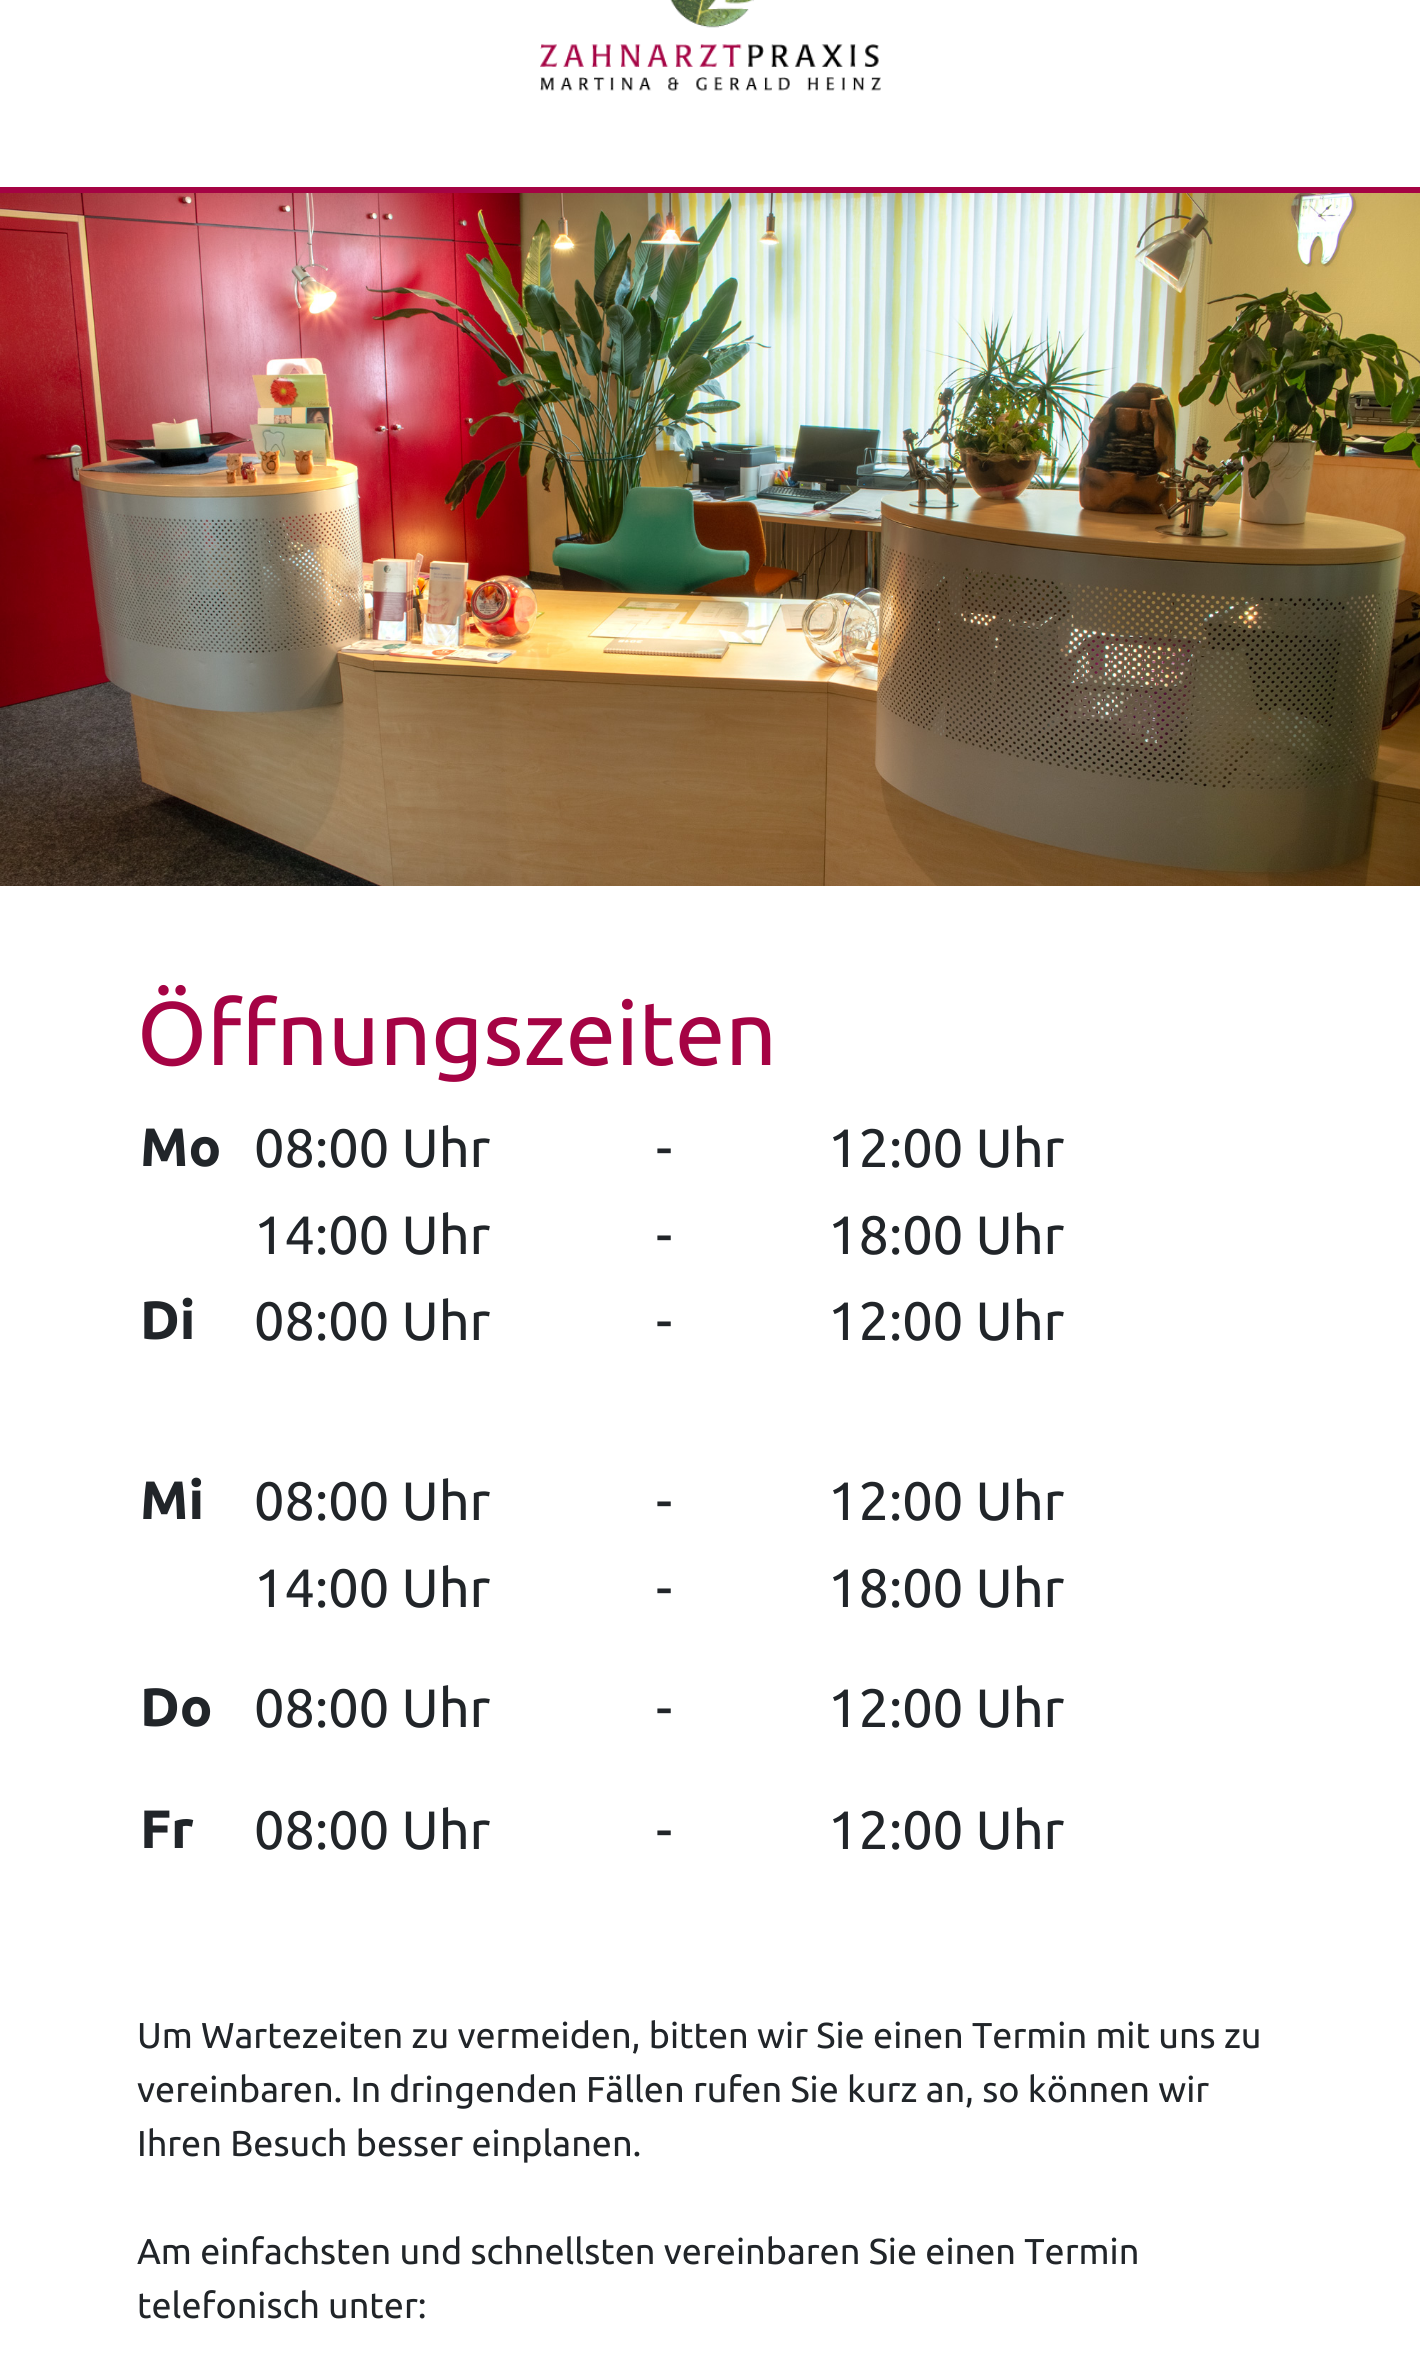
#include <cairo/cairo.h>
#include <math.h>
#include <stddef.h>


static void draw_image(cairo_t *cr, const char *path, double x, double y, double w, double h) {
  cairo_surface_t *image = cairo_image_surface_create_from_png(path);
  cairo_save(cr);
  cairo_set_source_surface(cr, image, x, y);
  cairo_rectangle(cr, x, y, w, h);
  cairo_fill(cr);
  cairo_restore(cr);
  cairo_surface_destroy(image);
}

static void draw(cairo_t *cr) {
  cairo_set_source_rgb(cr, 1, 1, 1);
  cairo_paint(cr);
  cairo_set_source_rgb(cr, 165 / 255.0, 3 / 255.0, 68 / 255.0);
  cairo_rectangle(cr, 0, 187, 1420, 6);
  cairo_fill(cr);
  draw_image(cr, "images/1.png", 540, 0, 341, 91);
  draw_image(cr, "images/2.png", 0, 193, 1420, 693);
  cairo_select_font_face(cr, "Ubuntu", CAIRO_FONT_SLANT_NORMAL, CAIRO_FONT_WEIGHT_NORMAL);
  cairo_set_font_size(cr, 90);
  cairo_move_to(cr, 137, 1065);
  cairo_show_text(cr, "Öffnungszeiten");
  cairo_select_font_face(cr, "Ubuntu", CAIRO_FONT_SLANT_NORMAL, CAIRO_FONT_WEIGHT_BOLD);
  cairo_set_font_size(cr, 54);
  cairo_set_source_rgb(cr, 33 / 255.0, 37 / 255.0, 41 / 255.0);
  cairo_move_to(cr, 140, 1166);
  cairo_show_text(cr, "Mo");
  cairo_select_font_face(cr, "Ubuntu", CAIRO_FONT_SLANT_NORMAL, CAIRO_FONT_WEIGHT_NORMAL);
  cairo_move_to(cr, 254, 1167);
  cairo_show_text(cr, "08:00 Uhr");
  cairo_move_to(cr, 656, 1167);
  cairo_show_text(cr, "-");
  cairo_move_to(cr, 828, 1167);
  cairo_show_text(cr, "12:00 Uhr");
  cairo_move_to(cr, 254, 1254);
  cairo_show_text(cr, "14:00 Uhr");
  cairo_move_to(cr, 656, 1254);
  cairo_show_text(cr, "-");
  cairo_move_to(cr, 828, 1254);
  cairo_show_text(cr, "18:00 Uhr");
  cairo_select_font_face(cr, "Ubuntu", CAIRO_FONT_SLANT_NORMAL, CAIRO_FONT_WEIGHT_BOLD);
  cairo_move_to(cr, 140, 1339);
  cairo_show_text(cr, "Di");
  cairo_select_font_face(cr, "Ubuntu", CAIRO_FONT_SLANT_NORMAL, CAIRO_FONT_WEIGHT_NORMAL);
  cairo_move_to(cr, 254, 1340);
  cairo_show_text(cr, "08:00 Uhr");
  cairo_move_to(cr, 656, 1340);
  cairo_show_text(cr, "-");
  cairo_move_to(cr, 828, 1340);
  cairo_show_text(cr, "12:00 Uhr");
  cairo_select_font_face(cr, "Ubuntu", CAIRO_FONT_SLANT_NORMAL, CAIRO_FONT_WEIGHT_BOLD);
  cairo_move_to(cr, 140, 1519);
  cairo_show_text(cr, "Mi");
  cairo_select_font_face(cr, "Ubuntu", CAIRO_FONT_SLANT_NORMAL, CAIRO_FONT_WEIGHT_NORMAL);
  cairo_move_to(cr, 254, 1520);
  cairo_show_text(cr, "08:00 Uhr");
  cairo_move_to(cr, 656, 1520);
  cairo_show_text(cr, "-");
  cairo_move_to(cr, 828, 1520);
  cairo_show_text(cr, "12:00 Uhr");
  cairo_move_to(cr, 254, 1607);
  cairo_show_text(cr, "14:00 Uhr");
  cairo_move_to(cr, 656, 1607);
  cairo_show_text(cr, "-");
  cairo_move_to(cr, 828, 1607);
  cairo_show_text(cr, "18:00 Uhr");
  cairo_select_font_face(cr, "Ubuntu", CAIRO_FONT_SLANT_NORMAL, CAIRO_FONT_WEIGHT_BOLD);
  cairo_move_to(cr, 140, 1726);
  cairo_show_text(cr, "Do");
  cairo_select_font_face(cr, "Ubuntu", CAIRO_FONT_SLANT_NORMAL, CAIRO_FONT_WEIGHT_NORMAL);
  cairo_move_to(cr, 254, 1727);
  cairo_show_text(cr, "08:00 Uhr");
  cairo_move_to(cr, 656, 1727);
  cairo_show_text(cr, "-");
  cairo_move_to(cr, 828, 1727);
  cairo_show_text(cr, "12:00 Uhr");
  cairo_select_font_face(cr, "Ubuntu", CAIRO_FONT_SLANT_NORMAL, CAIRO_FONT_WEIGHT_BOLD);
  cairo_move_to(cr, 140, 1848);
  cairo_show_text(cr, "Fr");
  cairo_select_font_face(cr, "Ubuntu", CAIRO_FONT_SLANT_NORMAL, CAIRO_FONT_WEIGHT_NORMAL);
  cairo_move_to(cr, 254, 1849);
  cairo_show_text(cr, "08:00 Uhr");
  cairo_move_to(cr, 656, 1849);
  cairo_show_text(cr, "-");
  cairo_move_to(cr, 828, 1849);
  cairo_show_text(cr, "12:00 Uhr");
  cairo_set_font_size(cr, 36);
  cairo_move_to(cr, 137, 2048);
  cairo_show_text(cr, "Um Wartezeiten zu vermeiden, bitten wir Sie einen Termin mit uns zu");
  cairo_move_to(cr, 137, 2102);
  cairo_show_text(cr, "vereinbaren. In dringenden Fällen rufen Sie kurz an, so können wir");
  cairo_move_to(cr, 137, 2156);
  cairo_show_text(cr, "Ihren Besuch besser einplanen.");
  cairo_move_to(cr, 137, 2264);
  cairo_show_text(cr, "Am einfachsten und schnellsten vereinbaren Sie einen Termin");
  cairo_move_to(cr, 137, 2318);
  cairo_show_text(cr, "telefonisch unter:");
}

int main(void) {
  cairo_surface_t *surface = cairo_image_surface_create(CAIRO_FORMAT_RGB24, 1420, 2359);
  cairo_t *cr = cairo_create(surface);
  cairo_font_options_t *options = cairo_font_options_create();
  cairo_font_options_set_hint_metrics(options, CAIRO_HINT_METRICS_OFF);
  cairo_font_options_set_hint_style(options, CAIRO_HINT_STYLE_NONE);
  cairo_set_font_options(cr, options);
  cairo_set_miter_limit(cr, 4);
  draw(cr);
  cairo_surface_write_to_png(surface, "out.png");
  cairo_font_options_destroy(options);
  cairo_destroy(cr);
  cairo_surface_destroy(surface);
  return 0;
}
